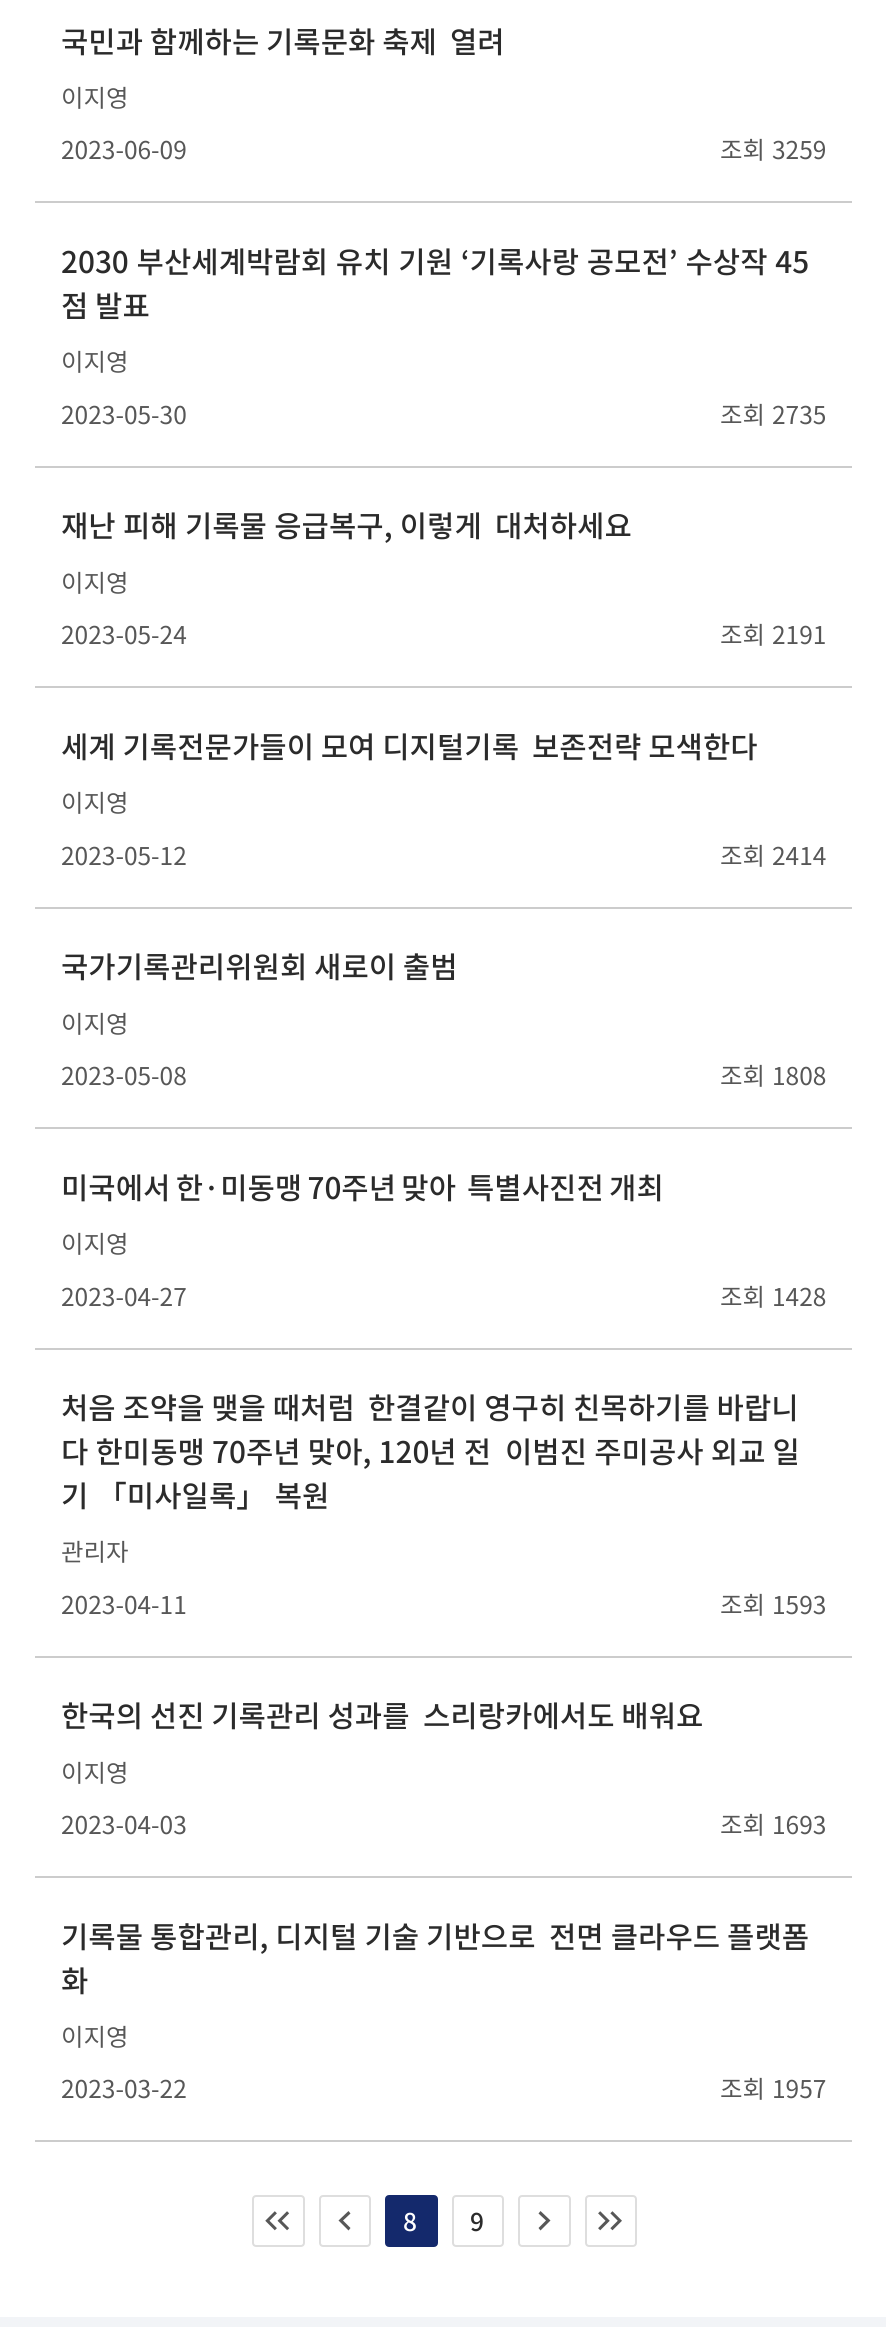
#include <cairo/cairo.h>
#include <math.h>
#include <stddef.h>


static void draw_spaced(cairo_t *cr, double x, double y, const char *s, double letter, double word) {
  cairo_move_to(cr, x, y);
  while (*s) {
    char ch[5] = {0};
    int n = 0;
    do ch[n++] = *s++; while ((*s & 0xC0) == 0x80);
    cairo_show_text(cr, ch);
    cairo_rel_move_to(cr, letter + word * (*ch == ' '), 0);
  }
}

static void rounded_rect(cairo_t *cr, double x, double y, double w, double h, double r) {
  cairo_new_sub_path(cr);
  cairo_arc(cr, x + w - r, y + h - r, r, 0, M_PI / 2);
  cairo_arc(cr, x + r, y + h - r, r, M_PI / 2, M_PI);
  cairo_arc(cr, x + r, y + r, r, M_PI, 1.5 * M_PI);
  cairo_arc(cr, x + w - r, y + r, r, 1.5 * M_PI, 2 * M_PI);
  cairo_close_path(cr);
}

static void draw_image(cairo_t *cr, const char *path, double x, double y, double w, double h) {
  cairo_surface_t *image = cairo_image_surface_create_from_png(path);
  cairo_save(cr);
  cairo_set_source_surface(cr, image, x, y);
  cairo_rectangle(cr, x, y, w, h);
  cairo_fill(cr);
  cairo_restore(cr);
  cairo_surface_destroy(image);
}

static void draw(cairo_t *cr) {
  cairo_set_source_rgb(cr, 1, 1, 1);
  cairo_paint(cr);
  cairo_set_source_rgb(cr, 204 / 255.0, 204 / 255.0, 204 / 255.0);
  cairo_rectangle(cr, 35, 201, 817, 2);
  cairo_fill(cr);
  cairo_rectangle(cr, 35, 466, 817, 2);
  cairo_fill(cr);
  cairo_rectangle(cr, 35, 686, 817, 2);
  cairo_fill(cr);
  cairo_rectangle(cr, 35, 907, 817, 2);
  cairo_fill(cr);
  cairo_rectangle(cr, 35, 1127, 817, 2);
  cairo_fill(cr);
  cairo_rectangle(cr, 35, 1348, 817, 2);
  cairo_fill(cr);
  cairo_rectangle(cr, 35, 1656, 817, 2);
  cairo_fill(cr);
  cairo_rectangle(cr, 35, 1876, 817, 2);
  cairo_fill(cr);
  cairo_rectangle(cr, 35, 2140, 817, 2);
  cairo_fill(cr);
  rounded_rect(cr, 253, 2196, 51, 50, 3);
  cairo_set_source_rgb(cr, 222 / 255.0, 222 / 255.0, 222 / 255.0);
  cairo_stroke(cr);
  draw_image(cr, "images/1.png", 265, 2211, 25, 20);
  rounded_rect(cr, 320, 2196, 50, 50, 3);
  cairo_stroke(cr);
  cairo_set_source_rgb(cr, 87 / 255.0, 87 / 255.0, 87 / 255.0);
  cairo_new_path(cr);
  cairo_move_to(cr, 343, 2220.5);
  cairo_line_to(cr, 350.5, 2213.5);
  cairo_line_to(cr, 348.5, 2211);
  cairo_line_to(cr, 338.5, 2220.5);
  cairo_line_to(cr, 348.5, 2230.5);
  cairo_line_to(cr, 350.5, 2228);
  cairo_close_path(cr);
  cairo_fill(cr);
  cairo_set_source_rgb(cr, 20 / 255.0, 41 / 255.0, 108 / 255.0);
  rounded_rect(cr, 386, 2196, 51, 50, 3);
  cairo_fill_preserve(cr);
  cairo_stroke(cr);
  rounded_rect(cr, 453, 2196, 50, 50, 3);
  cairo_set_source_rgb(cr, 222 / 255.0, 222 / 255.0, 222 / 255.0);
  cairo_stroke(cr);
  rounded_rect(cr, 519, 2196, 51, 50, 3);
  cairo_stroke(cr);
  cairo_set_source_rgb(cr, 87 / 255.0, 87 / 255.0, 87 / 255.0);
  cairo_new_path(cr);
  cairo_move_to(cr, 546, 2220.5);
  cairo_line_to(cr, 538.5, 2213.5);
  cairo_line_to(cr, 540.5, 2211);
  cairo_line_to(cr, 550.5, 2220.5);
  cairo_line_to(cr, 540.5, 2230.5);
  cairo_line_to(cr, 538.5, 2228);
  cairo_close_path(cr);
  cairo_fill(cr);
  rounded_rect(cr, 586, 2196, 50, 50, 3);
  cairo_set_source_rgb(cr, 222 / 255.0, 222 / 255.0, 222 / 255.0);
  cairo_stroke(cr);
  draw_image(cr, "images/2.png", 598, 2211, 24, 20);
  cairo_set_source_rgb(cr, 242 / 255.0, 244 / 255.0, 247 / 255.0);
  cairo_rectangle(cr, 0, 2317, 886, 10);
  cairo_fill(cr);
  cairo_select_font_face(cr, "Noto Sans KR Medium", CAIRO_FONT_SLANT_NORMAL, CAIRO_FONT_WEIGHT_NORMAL);
  cairo_set_font_size(cr, 29.75);
  cairo_set_source_rgb(cr, 43 / 255.0, 43 / 255.0, 43 / 255.0);
  cairo_move_to(cr, 61, 53);
  cairo_show_text(cr, "국민과 함께하는 기록문화 축제");
  cairo_move_to(cr, 450, 53);
  cairo_show_text(cr, "열려");
  cairo_select_font_face(cr, "Noto Sans KR", CAIRO_FONT_SLANT_NORMAL, CAIRO_FONT_WEIGHT_NORMAL);
  cairo_set_font_size(cr, 24.5);
  cairo_set_source_rgb(cr, 87 / 255.0, 87 / 255.0, 87 / 255.0);
  cairo_move_to(cr, 61, 107);
  cairo_show_text(cr, "이지영");
  cairo_move_to(cr, 61, 159);
  cairo_show_text(cr, "2023-06-09");
  cairo_move_to(cr, 720, 159);
  cairo_show_text(cr, "조회");
  cairo_move_to(cr, 772, 159);
  cairo_show_text(cr, "3259");
  cairo_select_font_face(cr, "Noto Sans KR Medium", CAIRO_FONT_SLANT_NORMAL, CAIRO_FONT_WEIGHT_NORMAL);
  cairo_set_font_size(cr, 29.75);
  cairo_set_source_rgb(cr, 43 / 255.0, 43 / 255.0, 43 / 255.0);
  draw_spaced(cr, 61, 273, "2030 부산세계박람회 유치 기원 ‘기록사랑 공모전’ 수상작 45", 0, 1);
  cairo_move_to(cr, 61, 317);
  cairo_show_text(cr, "점 발표");
  cairo_select_font_face(cr, "Noto Sans KR", CAIRO_FONT_SLANT_NORMAL, CAIRO_FONT_WEIGHT_NORMAL);
  cairo_set_font_size(cr, 24.5);
  cairo_set_source_rgb(cr, 87 / 255.0, 87 / 255.0, 87 / 255.0);
  cairo_move_to(cr, 61, 371);
  cairo_show_text(cr, "이지영");
  cairo_move_to(cr, 61, 424);
  cairo_show_text(cr, "2023-05-30");
  cairo_move_to(cr, 720, 424);
  cairo_show_text(cr, "조회");
  cairo_move_to(cr, 772, 424);
  cairo_show_text(cr, "2735");
  cairo_select_font_face(cr, "Noto Sans KR Medium", CAIRO_FONT_SLANT_NORMAL, CAIRO_FONT_WEIGHT_NORMAL);
  cairo_set_font_size(cr, 29.75);
  cairo_set_source_rgb(cr, 43 / 255.0, 43 / 255.0, 43 / 255.0);
  draw_spaced(cr, 61, 537, "재난 피해 기록물 응급복구, 이렇게", 0, 0.5);
  draw_spaced(cr, 495, 537, "대처하세요", 0, 0.5);
  cairo_select_font_face(cr, "Noto Sans KR", CAIRO_FONT_SLANT_NORMAL, CAIRO_FONT_WEIGHT_NORMAL);
  cairo_set_font_size(cr, 24.5);
  cairo_set_source_rgb(cr, 87 / 255.0, 87 / 255.0, 87 / 255.0);
  cairo_move_to(cr, 61, 592);
  cairo_show_text(cr, "이지영");
  cairo_move_to(cr, 61, 644);
  cairo_show_text(cr, "2023-05-24");
  cairo_move_to(cr, 720, 644);
  cairo_show_text(cr, "조회");
  cairo_move_to(cr, 772, 644);
  cairo_show_text(cr, "2191");
  cairo_select_font_face(cr, "Noto Sans KR Medium", CAIRO_FONT_SLANT_NORMAL, CAIRO_FONT_WEIGHT_NORMAL);
  cairo_set_font_size(cr, 29.75);
  cairo_set_source_rgb(cr, 43 / 255.0, 43 / 255.0, 43 / 255.0);
  cairo_move_to(cr, 61, 758);
  cairo_show_text(cr, "세계 기록전문가들이 모여 디지털기록");
  cairo_move_to(cr, 532, 758);
  cairo_show_text(cr, "보존전략 모색한다");
  cairo_select_font_face(cr, "Noto Sans KR", CAIRO_FONT_SLANT_NORMAL, CAIRO_FONT_WEIGHT_NORMAL);
  cairo_set_font_size(cr, 24.5);
  cairo_set_source_rgb(cr, 87 / 255.0, 87 / 255.0, 87 / 255.0);
  cairo_move_to(cr, 61, 812);
  cairo_show_text(cr, "이지영");
  cairo_move_to(cr, 61, 865);
  cairo_show_text(cr, "2023-05-12");
  cairo_move_to(cr, 720, 865);
  cairo_show_text(cr, "조회");
  cairo_move_to(cr, 772, 865);
  cairo_show_text(cr, "2414");
  cairo_select_font_face(cr, "Noto Sans KR Medium", CAIRO_FONT_SLANT_NORMAL, CAIRO_FONT_WEIGHT_NORMAL);
  cairo_set_font_size(cr, 29.75);
  cairo_set_source_rgb(cr, 43 / 255.0, 43 / 255.0, 43 / 255.0);
  cairo_move_to(cr, 61, 978);
  cairo_show_text(cr, "국가기록관리위원회 새로이 출범");
  cairo_select_font_face(cr, "Noto Sans KR", CAIRO_FONT_SLANT_NORMAL, CAIRO_FONT_WEIGHT_NORMAL);
  cairo_set_font_size(cr, 24.5);
  cairo_set_source_rgb(cr, 87 / 255.0, 87 / 255.0, 87 / 255.0);
  cairo_move_to(cr, 61, 1033);
  cairo_show_text(cr, "이지영");
  cairo_move_to(cr, 61, 1085);
  cairo_show_text(cr, "2023-05-08");
  cairo_move_to(cr, 720, 1085);
  cairo_show_text(cr, "조회");
  cairo_move_to(cr, 772, 1085);
  cairo_show_text(cr, "1808");
  cairo_select_font_face(cr, "Noto Sans KR Medium", CAIRO_FONT_SLANT_NORMAL, CAIRO_FONT_WEIGHT_NORMAL);
  cairo_set_font_size(cr, 29.75);
  cairo_set_source_rgb(cr, 43 / 255.0, 43 / 255.0, 43 / 255.0);
  draw_spaced(cr, 61, 1199, "미국에서 한·미동맹 70주년 맞아", 0, -1.5);
  draw_spaced(cr, 467, 1199, "특별사진전 개최", 0, -1.5);
  cairo_select_font_face(cr, "Noto Sans KR", CAIRO_FONT_SLANT_NORMAL, CAIRO_FONT_WEIGHT_NORMAL);
  cairo_set_font_size(cr, 24.5);
  cairo_set_source_rgb(cr, 87 / 255.0, 87 / 255.0, 87 / 255.0);
  cairo_move_to(cr, 61, 1253);
  cairo_show_text(cr, "이지영");
  cairo_move_to(cr, 61, 1306);
  cairo_show_text(cr, "2023-04-27");
  cairo_move_to(cr, 720, 1306);
  cairo_show_text(cr, "조회");
  cairo_move_to(cr, 772, 1306);
  cairo_show_text(cr, "1428");
  cairo_select_font_face(cr, "Noto Sans KR Medium", CAIRO_FONT_SLANT_NORMAL, CAIRO_FONT_WEIGHT_NORMAL);
  cairo_set_font_size(cr, 29.75);
  cairo_set_source_rgb(cr, 43 / 255.0, 43 / 255.0, 43 / 255.0);
  cairo_move_to(cr, 61, 1419);
  cairo_show_text(cr, "처음 조약을 맺을 때처럼");
  cairo_move_to(cr, 368, 1419);
  cairo_show_text(cr, "한결같이 영구히 친목하기를 바랍니");
  draw_spaced(cr, 61, 1463, "다 한미동맹 70주년 맞아, 120년 전", 0, 0.4);
  draw_spaced(cr, 505, 1463, "이범진 주미공사 외교 일", 0, 0.4);
  draw_spaced(cr, 61, 1507, "기 「미사일록」 복원", 0, 2);
  cairo_select_font_face(cr, "Noto Sans KR", CAIRO_FONT_SLANT_NORMAL, CAIRO_FONT_WEIGHT_NORMAL);
  cairo_set_font_size(cr, 24.5);
  cairo_set_source_rgb(cr, 87 / 255.0, 87 / 255.0, 87 / 255.0);
  cairo_move_to(cr, 61, 1561);
  cairo_show_text(cr, "관리자");
  cairo_move_to(cr, 61, 1614);
  cairo_show_text(cr, "2023-04-11");
  cairo_move_to(cr, 720, 1614);
  cairo_show_text(cr, "조회");
  cairo_move_to(cr, 772, 1614);
  cairo_show_text(cr, "1593");
  cairo_select_font_face(cr, "Noto Sans KR Medium", CAIRO_FONT_SLANT_NORMAL, CAIRO_FONT_WEIGHT_NORMAL);
  cairo_set_font_size(cr, 29.75);
  cairo_set_source_rgb(cr, 43 / 255.0, 43 / 255.0, 43 / 255.0);
  cairo_move_to(cr, 61, 1727);
  cairo_show_text(cr, "한국의 선진 기록관리 성과를");
  cairo_move_to(cr, 423, 1727);
  cairo_show_text(cr, "스리랑카에서도 배워요");
  cairo_select_font_face(cr, "Noto Sans KR", CAIRO_FONT_SLANT_NORMAL, CAIRO_FONT_WEIGHT_NORMAL);
  cairo_set_font_size(cr, 24.5);
  cairo_set_source_rgb(cr, 87 / 255.0, 87 / 255.0, 87 / 255.0);
  cairo_move_to(cr, 61, 1782);
  cairo_show_text(cr, "이지영");
  cairo_move_to(cr, 61, 1834);
  cairo_show_text(cr, "2023-04-03");
  cairo_move_to(cr, 720, 1834);
  cairo_show_text(cr, "조회");
  cairo_move_to(cr, 772, 1834);
  cairo_show_text(cr, "1693");
  cairo_select_font_face(cr, "Noto Sans KR Medium", CAIRO_FONT_SLANT_NORMAL, CAIRO_FONT_WEIGHT_NORMAL);
  cairo_set_font_size(cr, 29.75);
  cairo_set_source_rgb(cr, 43 / 255.0, 43 / 255.0, 43 / 255.0);
  draw_spaced(cr, 61, 1948, "기록물 통합관리, 디지털 기술 기반으로", 0, 0.25);
  draw_spaced(cr, 549, 1948, "전면 클라우드 플랫폼", 0, 0.25);
  cairo_move_to(cr, 61, 1992);
  cairo_show_text(cr, "화");
  cairo_select_font_face(cr, "Noto Sans KR", CAIRO_FONT_SLANT_NORMAL, CAIRO_FONT_WEIGHT_NORMAL);
  cairo_set_font_size(cr, 24.5);
  cairo_set_source_rgb(cr, 87 / 255.0, 87 / 255.0, 87 / 255.0);
  cairo_move_to(cr, 61, 2046);
  cairo_show_text(cr, "이지영");
  cairo_move_to(cr, 61, 2098);
  cairo_show_text(cr, "2023-03-22");
  cairo_move_to(cr, 720, 2098);
  cairo_show_text(cr, "조회");
  cairo_move_to(cr, 772, 2098);
  cairo_show_text(cr, "1957");
  cairo_select_font_face(cr, "Noto Sans KR Medium", CAIRO_FONT_SLANT_NORMAL, CAIRO_FONT_WEIGHT_NORMAL);
  cairo_set_source_rgb(cr, 1, 1, 1);
  cairo_move_to(cr, 403, 2231);
  cairo_show_text(cr, "8");
  cairo_set_source_rgb(cr, 43 / 255.0, 43 / 255.0, 43 / 255.0);
  cairo_move_to(cr, 470, 2231);
  cairo_show_text(cr, "9");
}

int main(void) {
  cairo_surface_t *surface = cairo_image_surface_create(CAIRO_FORMAT_RGB24, 886, 2327);
  cairo_t *cr = cairo_create(surface);
  cairo_font_options_t *options = cairo_font_options_create();
  cairo_font_options_set_hint_metrics(options, CAIRO_HINT_METRICS_OFF);
  cairo_font_options_set_hint_style(options, CAIRO_HINT_STYLE_NONE);
  cairo_set_font_options(cr, options);
  cairo_set_miter_limit(cr, 4);
  draw(cr);
  cairo_surface_write_to_png(surface, "out.png");
  cairo_font_options_destroy(options);
  cairo_destroy(cr);
  cairo_surface_destroy(surface);
  return 0;
}
